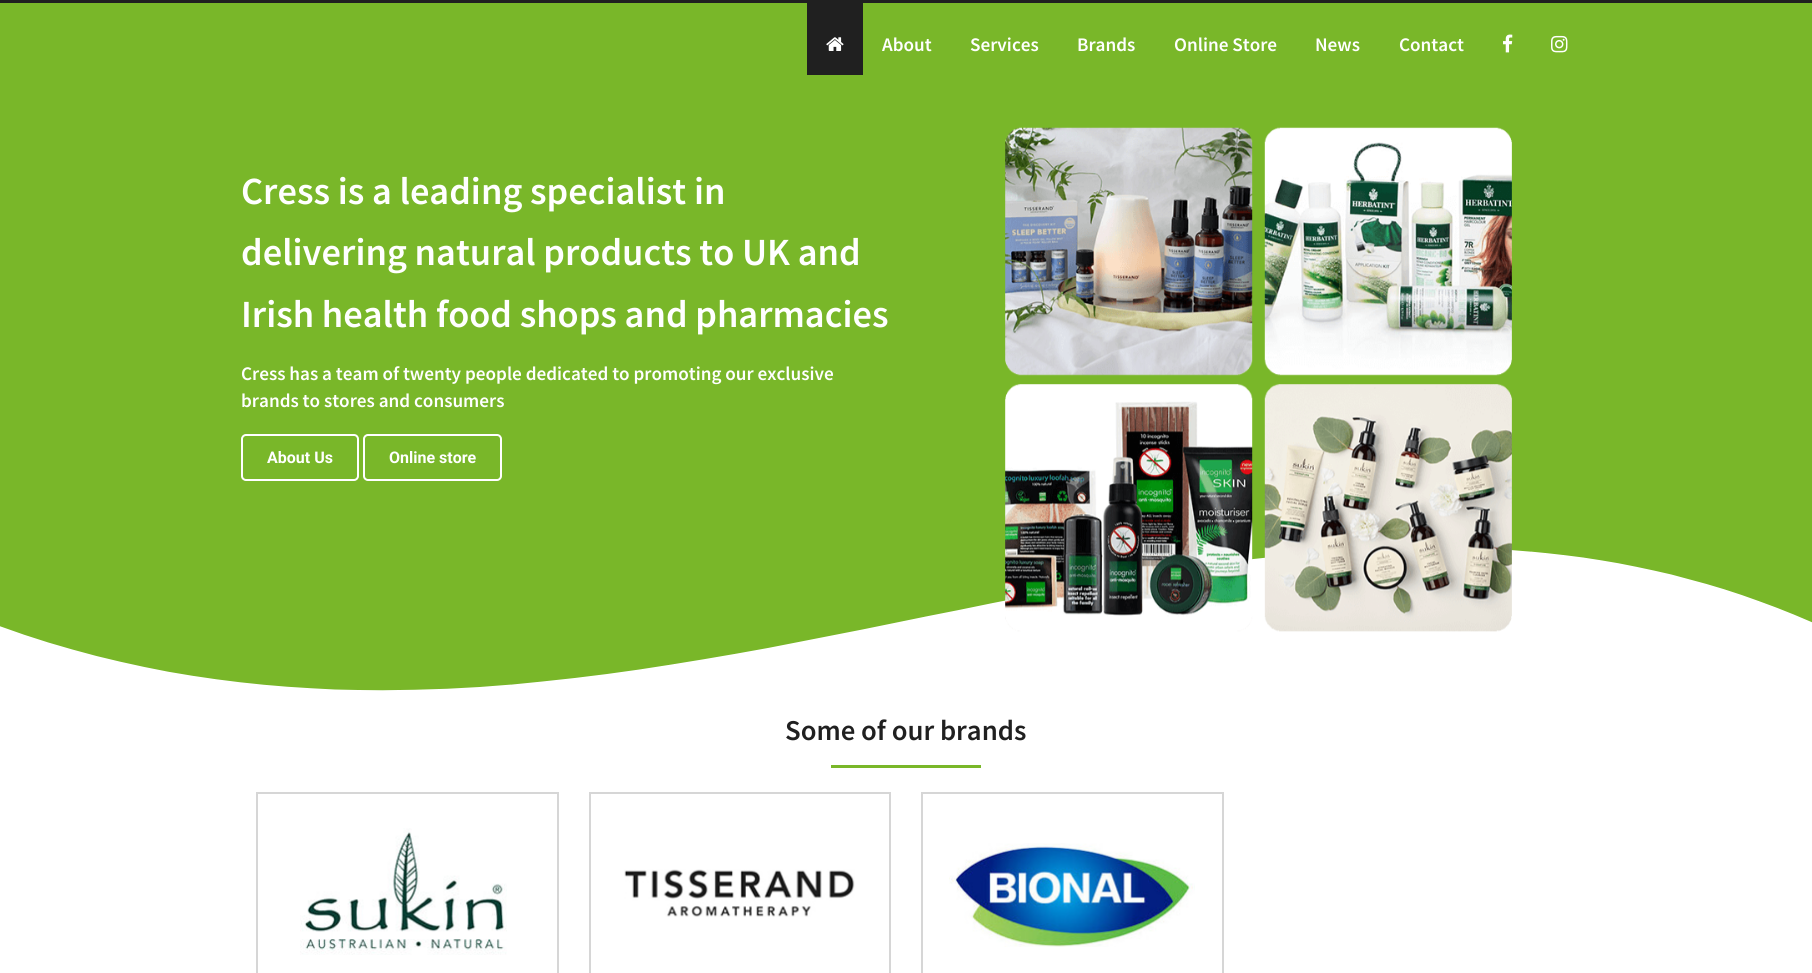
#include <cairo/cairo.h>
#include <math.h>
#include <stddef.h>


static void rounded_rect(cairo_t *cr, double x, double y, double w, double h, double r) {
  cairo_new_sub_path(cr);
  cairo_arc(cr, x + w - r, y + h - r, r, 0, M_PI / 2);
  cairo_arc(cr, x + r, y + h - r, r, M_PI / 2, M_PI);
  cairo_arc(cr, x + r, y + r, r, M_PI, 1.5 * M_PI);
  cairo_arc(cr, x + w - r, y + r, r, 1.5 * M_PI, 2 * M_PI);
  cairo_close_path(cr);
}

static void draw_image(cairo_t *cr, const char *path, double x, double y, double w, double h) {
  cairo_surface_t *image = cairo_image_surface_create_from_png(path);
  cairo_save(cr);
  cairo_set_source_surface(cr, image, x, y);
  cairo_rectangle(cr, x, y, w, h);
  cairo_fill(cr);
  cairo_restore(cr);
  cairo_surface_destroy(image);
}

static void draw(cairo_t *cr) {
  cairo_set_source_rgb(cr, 1, 1, 1);
  cairo_paint(cr);
  cairo_set_source_rgb(cr, 32 / 255.0, 32 / 255.0, 32 / 255.0);
  cairo_rectangle(cr, 0, 0, 1812, 3);
  cairo_fill(cr);
  cairo_set_source_rgb(cr, 121 / 255.0, 183 / 255.0, 41 / 255.0);
  cairo_rectangle(cr, 0, 3, 1812, 483);
  cairo_fill(cr);
  cairo_set_source_rgb(cr, 32 / 255.0, 32 / 255.0, 32 / 255.0);
  cairo_rectangle(cr, 807, 3, 56, 72);
  cairo_fill(cr);
  draw_image(cr, "images/1.png", 826, 37, 18, 14);
  draw_image(cr, "images/2.png", 1503, 34, 10, 19);
  draw_image(cr, "images/3.png", 1551, 35, 17, 18);
  rounded_rect(cr, 242, 435, 116, 45, 4);
  cairo_set_source_rgb(cr, 1, 1, 1);
  cairo_stroke(cr);
  rounded_rect(cr, 364, 435, 137, 45, 4);
  cairo_stroke(cr);
  draw_image(cr, "images/5.png", 0, 486, 1812, 205);
  draw_image(cr, "images/4.png", 1005, 127, 507, 505);
  cairo_set_source_rgb(cr, 121 / 255.0, 183 / 255.0, 41 / 255.0);
  cairo_rectangle(cr, 831, 765, 150, 3);
  cairo_fill(cr);
  cairo_rectangle(cr, 257, 793, 301, 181);
  cairo_set_source_rgb(cr, 214 / 255.0, 214 / 255.0, 214 / 255.0);
  cairo_stroke(cr);
  draw_image(cr, "images/6.png", 300, 828, 207, 127);
  cairo_rectangle(cr, 590, 793, 300, 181);
  cairo_stroke(cr);
  draw_image(cr, "images/7.png", 624, 869, 231, 48);
  cairo_rectangle(cr, 922, 793, 301, 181);
  cairo_stroke(cr);
  draw_image(cr, "images/8.png", 949, 843, 246, 104);
  cairo_select_font_face(cr, "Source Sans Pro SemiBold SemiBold", CAIRO_FONT_SLANT_NORMAL, CAIRO_FONT_WEIGHT_NORMAL);
  cairo_set_font_size(cr, 19.2);
  cairo_set_source_rgb(cr, 1, 1, 1);
  cairo_move_to(cr, 882, 51);
  cairo_show_text(cr, "About");
  cairo_move_to(cr, 970, 51);
  cairo_show_text(cr, "Services");
  cairo_move_to(cr, 1077, 51);
  cairo_show_text(cr, "Brands");
  cairo_move_to(cr, 1174, 51);
  cairo_show_text(cr, "Online Store");
  cairo_move_to(cr, 1315, 51);
  cairo_show_text(cr, "News");
  cairo_move_to(cr, 1399, 51);
  cairo_show_text(cr, "Contact");
  cairo_set_font_size(cr, 38.4);
  cairo_move_to(cr, 241, 204);
  cairo_show_text(cr, "Cress is a leading specialist in");
  cairo_move_to(cr, 241, 265);
  cairo_show_text(cr, "delivering natural products to UK and");
  cairo_move_to(cr, 241, 327);
  cairo_show_text(cr, "Irish health food shops and pharmacies");
  cairo_set_font_size(cr, 19.2);
  cairo_move_to(cr, 241, 380);
  cairo_show_text(cr, "Cress has a team of twenty people dedicated to promoting our exclusive");
  cairo_move_to(cr, 241, 407);
  cairo_show_text(cr, "brands to stores and consumers");
  cairo_select_font_face(cr, "Roboto", CAIRO_FONT_SLANT_NORMAL, CAIRO_FONT_WEIGHT_BOLD);
  cairo_set_font_size(cr, 16);
  cairo_move_to(cr, 267, 463);
  cairo_show_text(cr, "About Us");
  cairo_move_to(cr, 389, 463);
  cairo_show_text(cr, "Online store");
  cairo_select_font_face(cr, "Source Sans Pro SemiBold SemiBold", CAIRO_FONT_SLANT_NORMAL, CAIRO_FONT_WEIGHT_NORMAL);
  cairo_set_font_size(cr, 28.75);
  cairo_set_source_rgb(cr, 32 / 255.0, 32 / 255.0, 32 / 255.0);
  cairo_move_to(cr, 785, 740);
  cairo_show_text(cr, "Some of our brands");
}

int main(void) {
  cairo_surface_t *surface = cairo_image_surface_create(CAIRO_FORMAT_RGB24, 1812, 973);
  cairo_t *cr = cairo_create(surface);
  cairo_font_options_t *options = cairo_font_options_create();
  cairo_font_options_set_hint_metrics(options, CAIRO_HINT_METRICS_OFF);
  cairo_font_options_set_hint_style(options, CAIRO_HINT_STYLE_NONE);
  cairo_set_font_options(cr, options);
  cairo_set_miter_limit(cr, 4);
  draw(cr);
  cairo_surface_write_to_png(surface, "out.png");
  cairo_font_options_destroy(options);
  cairo_destroy(cr);
  cairo_surface_destroy(surface);
  return 0;
}
